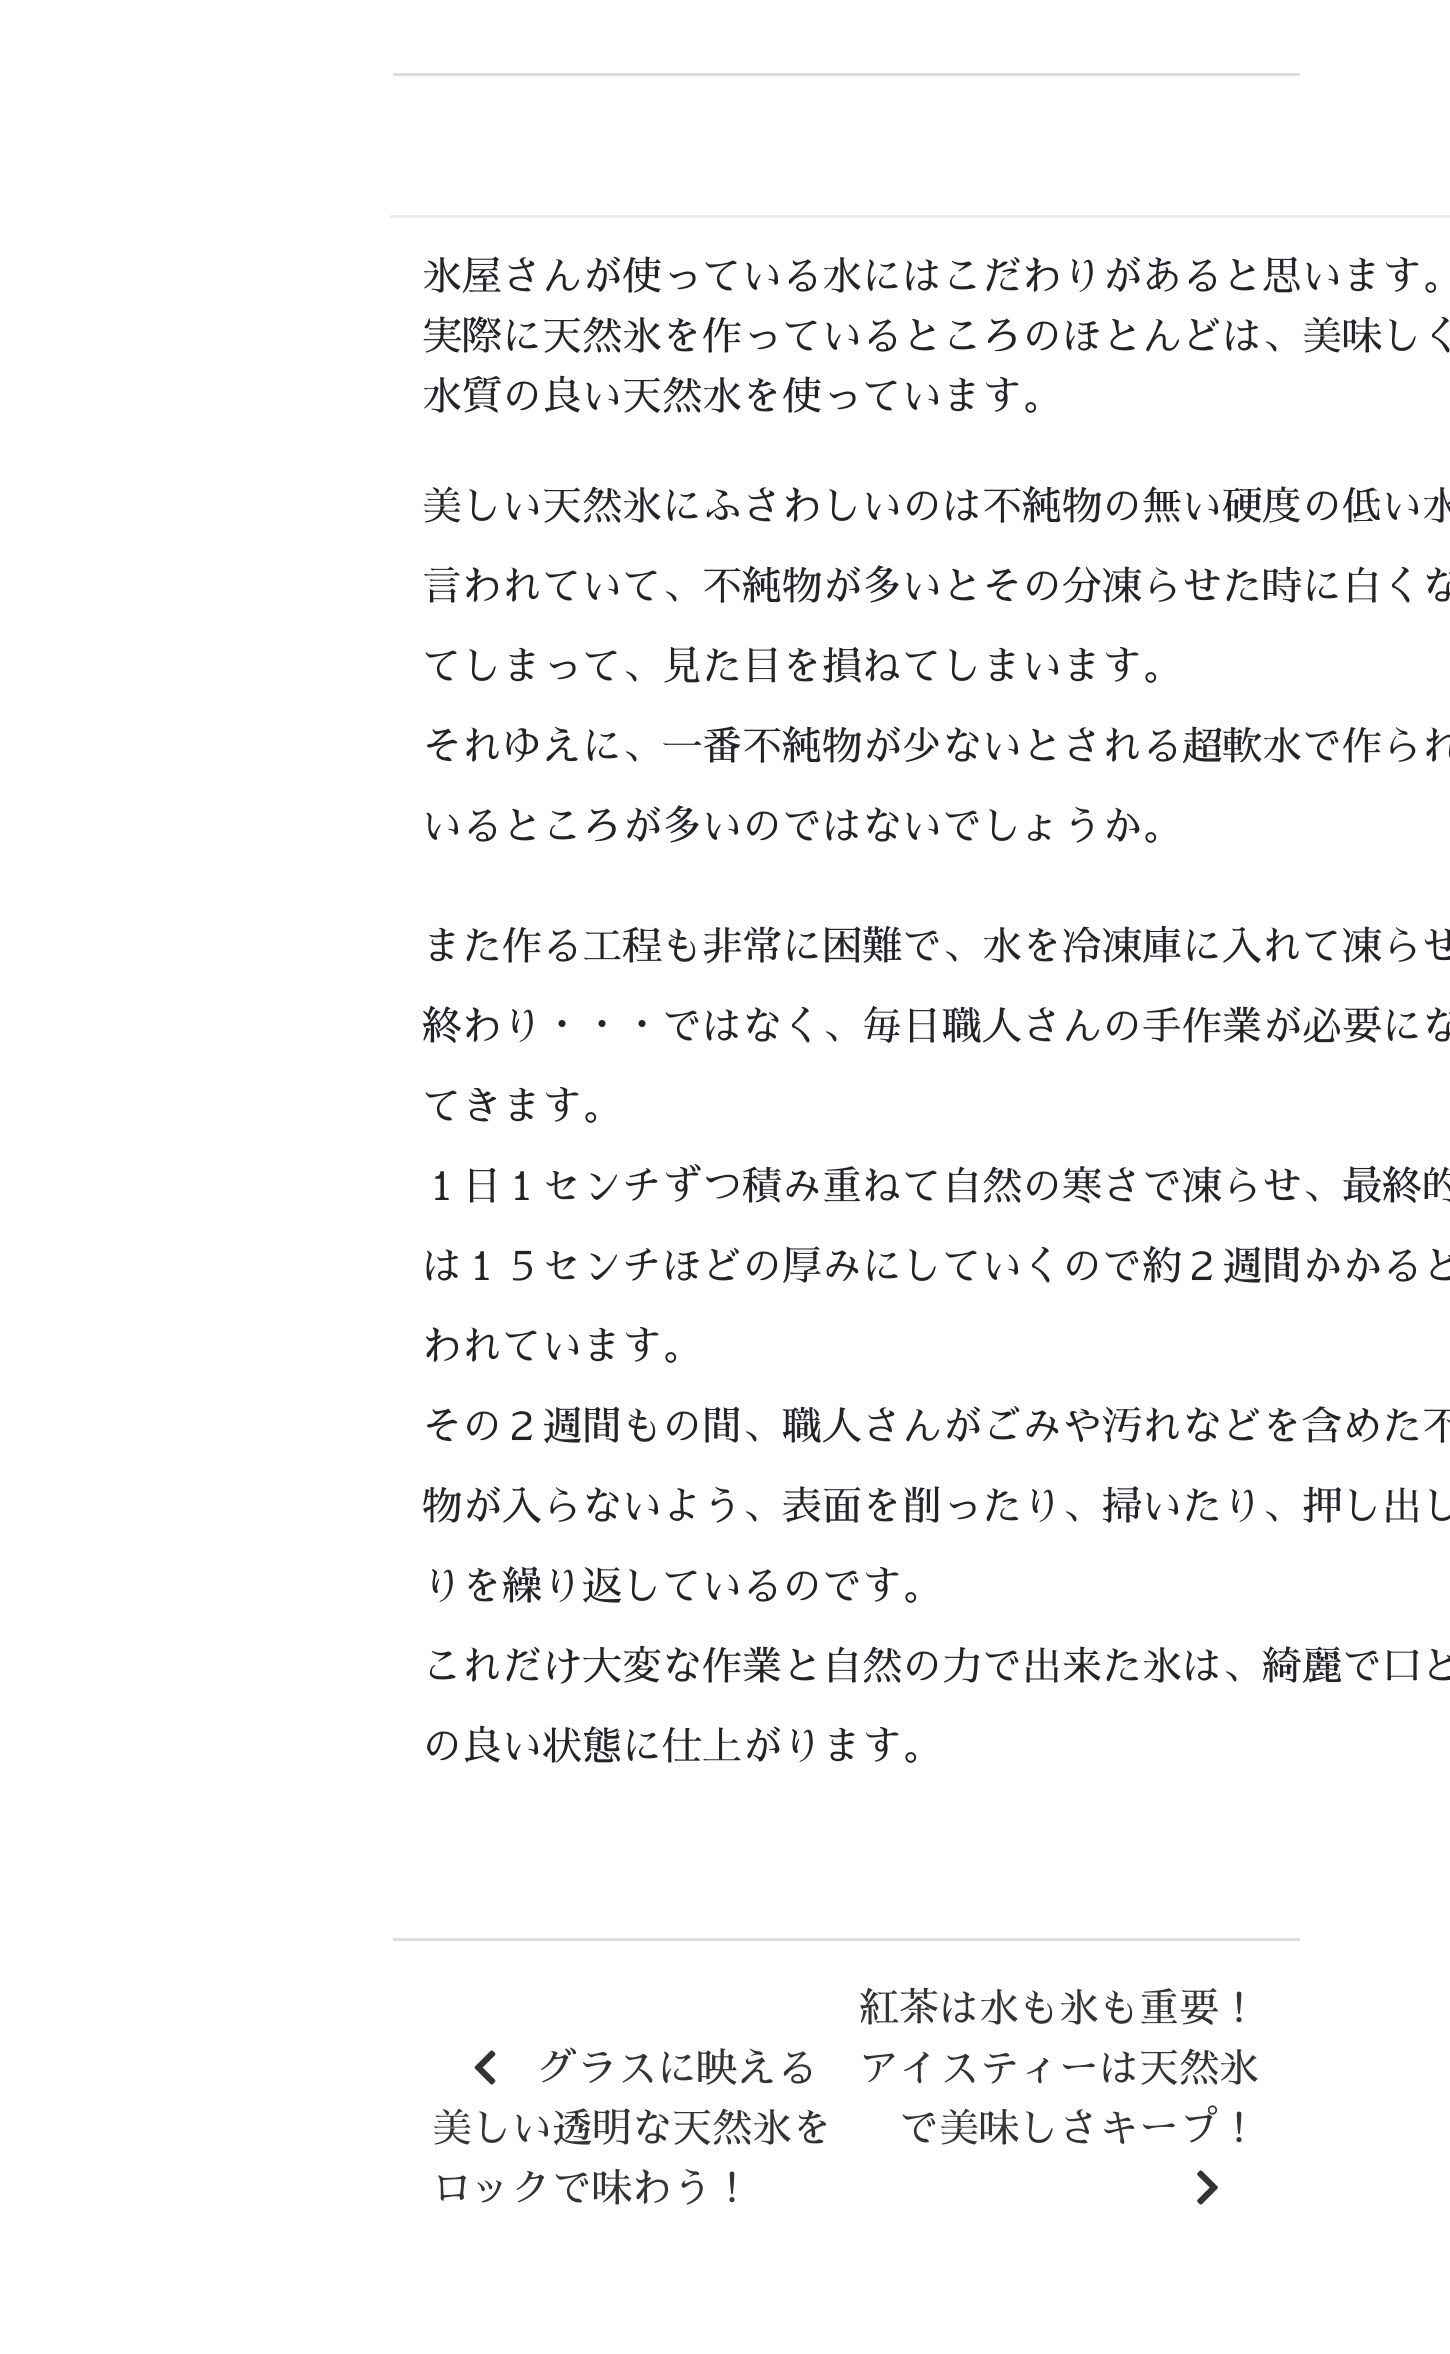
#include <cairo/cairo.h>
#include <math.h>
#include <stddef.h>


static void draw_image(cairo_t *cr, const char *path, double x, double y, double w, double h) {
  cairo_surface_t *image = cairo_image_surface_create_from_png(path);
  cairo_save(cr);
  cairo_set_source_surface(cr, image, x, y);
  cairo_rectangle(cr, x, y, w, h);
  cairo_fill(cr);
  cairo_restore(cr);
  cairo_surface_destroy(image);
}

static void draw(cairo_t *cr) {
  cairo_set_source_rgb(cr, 1, 1, 1);
  cairo_paint(cr);
  cairo_set_source_rgb(cr, 221 / 255.0, 221 / 255.0, 221 / 255.0);
  cairo_rectangle(cr, 393, 73, 907, 3);
  cairo_fill(cr);
  cairo_rectangle(cr, 393, 1938, 907, 3);
  cairo_fill(cr);
  cairo_set_source_rgb(cr, 237 / 255.0, 237 / 255.0, 237 / 255.0);
  cairo_rectangle(cr, 390, 215, 1060, 3);
  cairo_fill(cr);
  draw_image(cr, "images/1.png", 474, 2050, 22, 35);
  draw_image(cr, "images/2.png", 1197, 2170, 21, 35);
  cairo_select_font_face(cr, "Sawarabi Mincho", CAIRO_FONT_SLANT_NORMAL, CAIRO_FONT_WEIGHT_NORMAL);
  cairo_set_font_size(cr, 40);
  cairo_set_source_rgb(cr, 33 / 255.0, 37 / 255.0, 41 / 255.0);
  cairo_move_to(cr, 422, 290);
  cairo_show_text(cr, "氷屋さんが使っている水にはこだわりがあると思います。");
  cairo_move_to(cr, 422, 350);
  cairo_show_text(cr, "実際に天然氷を作っているところのほとんどは、美味しく");
  cairo_move_to(cr, 422, 410);
  cairo_show_text(cr, "水質の良い天然水を使っています。");
  cairo_move_to(cr, 422, 520);
  cairo_show_text(cr, "美しい天然氷にふさわしいのは不純物の無い硬度の低い水");
  cairo_move_to(cr, 422, 600);
  cairo_show_text(cr, "言われていて、不純物が多いとその分凍らせた時に白くな");
  cairo_move_to(cr, 422, 680);
  cairo_show_text(cr, "てしまって、見た目を損ねてしまいます。");
  cairo_move_to(cr, 422, 760);
  cairo_show_text(cr, "それゆえに、一番不純物が少ないとされる超軟水で作られ");
  cairo_move_to(cr, 422, 840);
  cairo_show_text(cr, "いるところが多いのではないでしょうか。");
  cairo_move_to(cr, 422, 960);
  cairo_show_text(cr, "また作る工程も非常に困難で、水を冷凍庫に入れて凍らせ");
  cairo_move_to(cr, 422, 1040);
  cairo_show_text(cr, "終わり・・・ではなく、毎日職人さんの手作業が必要にな");
  cairo_move_to(cr, 422, 1120);
  cairo_show_text(cr, "てきます。");
  cairo_move_to(cr, 422, 1200);
  cairo_show_text(cr, "１日１センチずつ積み重ねて自然の寒さで凍らせ、最終的");
  cairo_move_to(cr, 422, 1280);
  cairo_show_text(cr, "は１５センチほどの厚みにしていくので約２週間かかると");
  cairo_move_to(cr, 422, 1360);
  cairo_show_text(cr, "われています。");
  cairo_move_to(cr, 422, 1440);
  cairo_show_text(cr, "その２週間もの間、職人さんがごみや汚れなどを含めた不");
  cairo_move_to(cr, 422, 1520);
  cairo_show_text(cr, "物が入らないよう、表面を削ったり、掃いたり、押し出し");
  cairo_move_to(cr, 422, 1600);
  cairo_show_text(cr, "りを繰り返しているのです。");
  cairo_move_to(cr, 422, 1680);
  cairo_show_text(cr, "これだけ大変な作業と自然の力で出来た氷は、綺麗で口ど");
  cairo_move_to(cr, 422, 1760);
  cairo_show_text(cr, "の良い状態に仕上がります。");
  cairo_set_source_rgb(cr, 51 / 255.0, 51 / 255.0, 51 / 255.0);
  cairo_move_to(cr, 537, 2082);
  cairo_show_text(cr, "グラスに映える");
  cairo_move_to(cr, 432, 2142);
  cairo_show_text(cr, "美しい透明な天然氷を");
  cairo_move_to(cr, 432, 2202);
  cairo_show_text(cr, "ロックで味わう！");
  cairo_move_to(cr, 859, 2022);
  cairo_show_text(cr, "紅茶は水も氷も重要！");
  cairo_move_to(cr, 859, 2082);
  cairo_show_text(cr, "アイスティーは天然氷");
  cairo_move_to(cr, 899, 2142);
  cairo_show_text(cr, "で美味しさキープ！");
}

int main(void) {
  cairo_surface_t *surface = cairo_image_surface_create(CAIRO_FORMAT_RGB24, 1450, 2354);
  cairo_t *cr = cairo_create(surface);
  cairo_font_options_t *options = cairo_font_options_create();
  cairo_font_options_set_hint_metrics(options, CAIRO_HINT_METRICS_OFF);
  cairo_font_options_set_hint_style(options, CAIRO_HINT_STYLE_NONE);
  cairo_set_font_options(cr, options);
  cairo_set_miter_limit(cr, 4);
  draw(cr);
  cairo_surface_write_to_png(surface, "out.png");
  cairo_font_options_destroy(options);
  cairo_destroy(cr);
  cairo_surface_destroy(surface);
  return 0;
}
